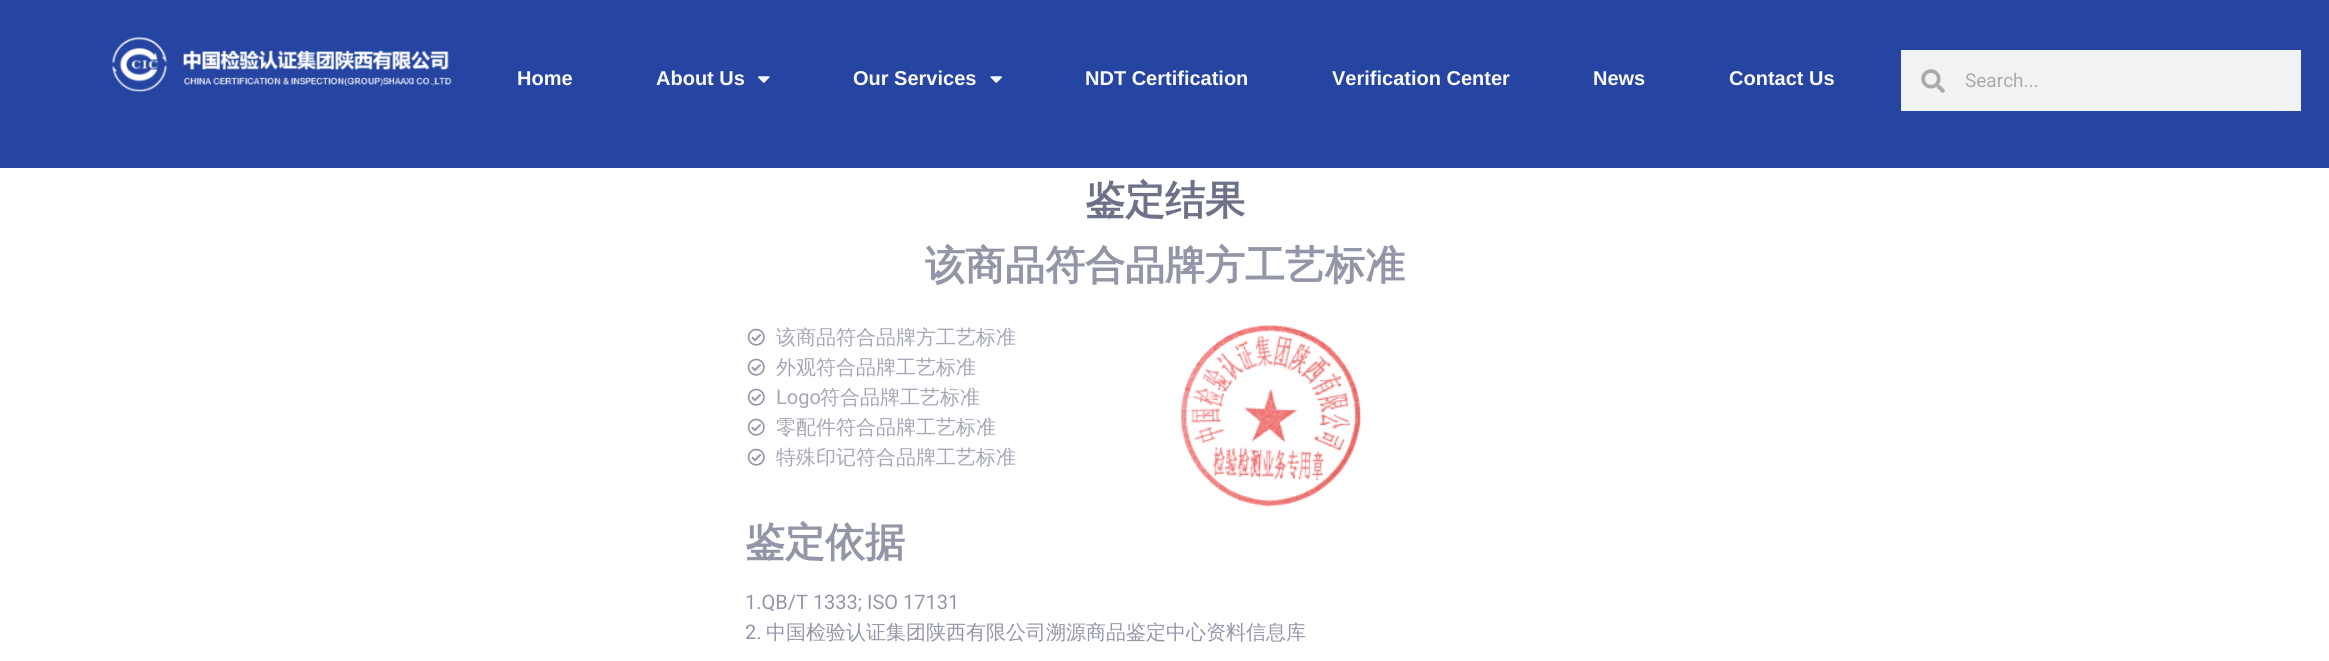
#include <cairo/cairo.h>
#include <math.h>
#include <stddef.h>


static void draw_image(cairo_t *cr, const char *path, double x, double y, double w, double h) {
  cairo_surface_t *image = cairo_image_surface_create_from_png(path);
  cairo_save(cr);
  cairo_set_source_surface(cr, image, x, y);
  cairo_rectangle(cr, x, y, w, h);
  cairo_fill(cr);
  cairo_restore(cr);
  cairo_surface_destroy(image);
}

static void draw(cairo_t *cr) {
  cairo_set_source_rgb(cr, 1, 1, 1);
  cairo_paint(cr);
  cairo_set_source_rgb(cr, 38 / 255.0, 69 / 255.0, 162 / 255.0);
  cairo_rectangle(cr, 0, 0, 2329, 168);
  cairo_fill(cr);
  draw_image(cr, "images/1.png", 112, 37, 340, 55);
  draw_image(cr, "images/2.png", 758, 76, 12, 7);
  draw_image(cr, "images/3.png", 990, 76, 12, 7);
  cairo_set_source_rgb(cr, 241 / 255.0, 242 / 255.0, 243 / 255.0);
  cairo_rectangle(cr, 1901, 50, 400, 61);
  cairo_fill(cr);
  draw_image(cr, "images/4.png", 1921, 69, 24, 24);
  draw_image(cr, "images/5.png", 747, 328, 18, 18);
  draw_image(cr, "images/5.png", 747, 358, 18, 18);
  draw_image(cr, "images/5.png", 747, 388, 18, 18);
  draw_image(cr, "images/5.png", 747, 418, 18, 18);
  draw_image(cr, "images/5.png", 747, 448, 18, 18);
  draw_image(cr, "images/6.png", 1180, 324, 182, 183);
  cairo_select_font_face(cr, "Liberation Sans", CAIRO_FONT_SLANT_NORMAL, CAIRO_FONT_WEIGHT_BOLD);
  cairo_set_font_size(cr, 20);
  cairo_set_source_rgb(cr, 250 / 255.0, 250 / 255.0, 250 / 255.0);
  cairo_move_to(cr, 517, 85);
  cairo_show_text(cr, "Home");
  cairo_move_to(cr, 656, 85);
  cairo_show_text(cr, "About Us");
  cairo_move_to(cr, 853, 85);
  cairo_show_text(cr, "Our Services");
  cairo_move_to(cr, 1085, 85);
  cairo_show_text(cr, "NDT Certification");
  cairo_move_to(cr, 1332, 85);
  cairo_show_text(cr, "Verification Center");
  cairo_move_to(cr, 1593, 85);
  cairo_show_text(cr, "News");
  cairo_move_to(cr, 1729, 85);
  cairo_show_text(cr, "Contact Us");
  cairo_select_font_face(cr, "Roboto", CAIRO_FONT_SLANT_NORMAL, CAIRO_FONT_WEIGHT_NORMAL);
  cairo_set_font_size(cr, 19);
  cairo_set_source_rgb(cr, 170 / 255.0, 170 / 255.0, 170 / 255.0);
  cairo_move_to(cr, 1965, 87);
  cairo_show_text(cr, "Search...");
  cairo_select_font_face(cr, "WenQuanYi Zen Hei", CAIRO_FONT_SLANT_NORMAL, CAIRO_FONT_WEIGHT_BOLD);
  cairo_set_font_size(cr, 40);
  cairo_set_source_rgb(cr, 110 / 255.0, 114 / 255.0, 136 / 255.0);
  cairo_move_to(cr, 1085, 214);
  cairo_show_text(cr, "鉴定结果");
  cairo_set_source_rgb(cr, 147 / 255.0, 150 / 255.0, 167 / 255.0);
  cairo_move_to(cr, 925, 279);
  cairo_show_text(cr, "该商品符合品牌方工艺标准");
  cairo_select_font_face(cr, "WenQuanYi Zen Hei Medium", CAIRO_FONT_SLANT_NORMAL, CAIRO_FONT_WEIGHT_NORMAL);
  cairo_set_font_size(cr, 20);
  cairo_set_source_rgb(cr, 164 / 255.0, 167 / 255.0, 181 / 255.0);
  cairo_move_to(cr, 776, 344);
  cairo_show_text(cr, "该商品符合品牌方工艺标准");
  cairo_move_to(cr, 776, 374);
  cairo_show_text(cr, "外观符合品牌工艺标准");
  cairo_select_font_face(cr, "Roboto", CAIRO_FONT_SLANT_NORMAL, CAIRO_FONT_WEIGHT_NORMAL);
  cairo_move_to(cr, 776, 404);
  cairo_show_text(cr, "Logo");
  cairo_select_font_face(cr, "WenQuanYi Zen Hei Medium", CAIRO_FONT_SLANT_NORMAL, CAIRO_FONT_WEIGHT_NORMAL);
  cairo_move_to(cr, 820, 404);
  cairo_show_text(cr, "符合品牌工艺标准");
  cairo_move_to(cr, 776, 434);
  cairo_show_text(cr, "零配件符合品牌工艺标准");
  cairo_move_to(cr, 776, 464);
  cairo_show_text(cr, "特殊印记符合品牌工艺标准");
  cairo_select_font_face(cr, "WenQuanYi Zen Hei", CAIRO_FONT_SLANT_NORMAL, CAIRO_FONT_WEIGHT_BOLD);
  cairo_set_font_size(cr, 40);
  cairo_set_source_rgb(cr, 147 / 255.0, 150 / 255.0, 167 / 255.0);
  cairo_move_to(cr, 745, 556);
  cairo_show_text(cr, "鉴定依据");
  cairo_select_font_face(cr, "Roboto", CAIRO_FONT_SLANT_NORMAL, CAIRO_FONT_WEIGHT_NORMAL);
  cairo_set_font_size(cr, 20);
  cairo_move_to(cr, 745, 609);
  cairo_show_text(cr, "1.QB/T 1333; ISO 17131");
  cairo_move_to(cr, 745, 639);
  cairo_show_text(cr, "2.");
  cairo_select_font_face(cr, "WenQuanYi Zen Hei Medium", CAIRO_FONT_SLANT_NORMAL, CAIRO_FONT_WEIGHT_NORMAL);
  cairo_move_to(cr, 766, 639);
  cairo_show_text(cr, "中国检验认证集团陕西有限公司溯源商品鉴定中心资料信息库");
}

int main(void) {
  cairo_surface_t *surface = cairo_image_surface_create(CAIRO_FORMAT_RGB24, 2329, 661);
  cairo_t *cr = cairo_create(surface);
  cairo_font_options_t *options = cairo_font_options_create();
  cairo_font_options_set_hint_metrics(options, CAIRO_HINT_METRICS_OFF);
  cairo_font_options_set_hint_style(options, CAIRO_HINT_STYLE_NONE);
  cairo_set_font_options(cr, options);
  cairo_set_miter_limit(cr, 4);
  draw(cr);
  cairo_surface_write_to_png(surface, "out.png");
  cairo_font_options_destroy(options);
  cairo_destroy(cr);
  cairo_surface_destroy(surface);
  return 0;
}
